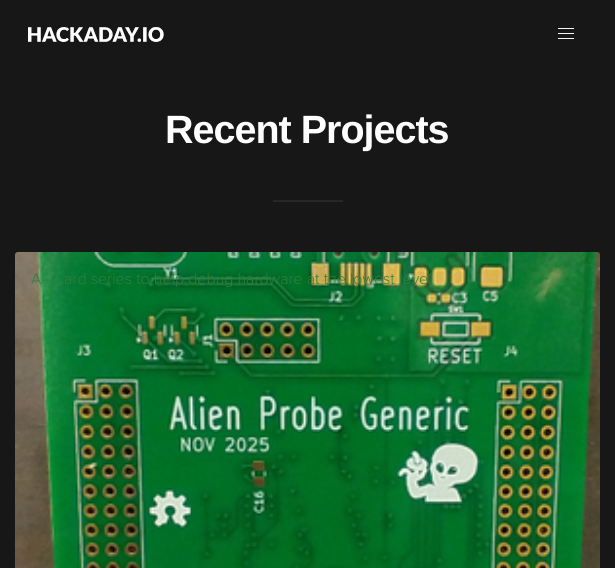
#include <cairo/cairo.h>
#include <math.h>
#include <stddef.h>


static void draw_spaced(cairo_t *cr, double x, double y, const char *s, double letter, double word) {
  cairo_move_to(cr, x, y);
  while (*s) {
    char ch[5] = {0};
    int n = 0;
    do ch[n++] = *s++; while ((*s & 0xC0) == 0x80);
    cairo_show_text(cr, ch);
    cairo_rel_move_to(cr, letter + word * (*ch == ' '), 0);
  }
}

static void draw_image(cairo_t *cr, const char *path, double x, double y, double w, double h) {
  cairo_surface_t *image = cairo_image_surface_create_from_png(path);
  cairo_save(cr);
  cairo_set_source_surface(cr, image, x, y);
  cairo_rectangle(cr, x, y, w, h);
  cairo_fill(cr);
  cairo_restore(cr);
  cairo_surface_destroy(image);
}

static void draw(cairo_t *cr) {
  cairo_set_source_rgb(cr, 23 / 255.0, 23 / 255.0, 23 / 255.0);
  cairo_paint(cr);
  draw_image(cr, "images/1.png", 28, 27, 136, 15);
  cairo_set_source_rgb(cr, 245 / 255.0, 245 / 255.0, 245 / 255.0);
  cairo_rectangle(cr, 558, 28, 16, 1);
  cairo_fill(cr);
  cairo_rectangle(cr, 558, 33, 16, 1);
  cairo_fill(cr);
  cairo_rectangle(cr, 558, 38, 16, 1);
  cairo_fill(cr);
  cairo_set_source_rgb(cr, 39 / 255.0, 39 / 255.0, 39 / 255.0);
  cairo_rectangle(cr, 273, 200, 70, 2);
  cairo_fill(cr);
  draw_image(cr, "images/2.png", 15, 252, 585, 316);
  cairo_select_font_face(cr, "Liberation Sans", CAIRO_FONT_SLANT_NORMAL, CAIRO_FONT_WEIGHT_BOLD);
  cairo_set_font_size(cr, 39.5);
  cairo_set_source_rgb(cr, 1, 1, 1);
  draw_spaced(cr, 165, 143, "Recent Projects", -1, 0);
  cairo_select_font_face(cr, "Proxima Nova Light", CAIRO_FONT_SLANT_NORMAL, CAIRO_FONT_WEIGHT_NORMAL);
  cairo_set_font_size(cr, 16);
  cairo_set_source_rgb(cr, 51 / 255.0, 125 / 255.0, 59 / 255.0);
  cairo_move_to(cr, 31, 284);
  cairo_show_text(cr, "A");
  cairo_move_to(cr, 64, 284);
  cairo_show_text(cr, "ard series to help debug hardware at the lowest level");
}

int main(void) {
  cairo_surface_t *surface = cairo_image_surface_create(CAIRO_FORMAT_RGB24, 615, 568);
  cairo_t *cr = cairo_create(surface);
  cairo_font_options_t *options = cairo_font_options_create();
  cairo_font_options_set_hint_metrics(options, CAIRO_HINT_METRICS_OFF);
  cairo_font_options_set_hint_style(options, CAIRO_HINT_STYLE_NONE);
  cairo_set_font_options(cr, options);
  cairo_set_miter_limit(cr, 4);
  draw(cr);
  cairo_surface_write_to_png(surface, "out.png");
  cairo_font_options_destroy(options);
  cairo_destroy(cr);
  cairo_surface_destroy(surface);
  return 0;
}
